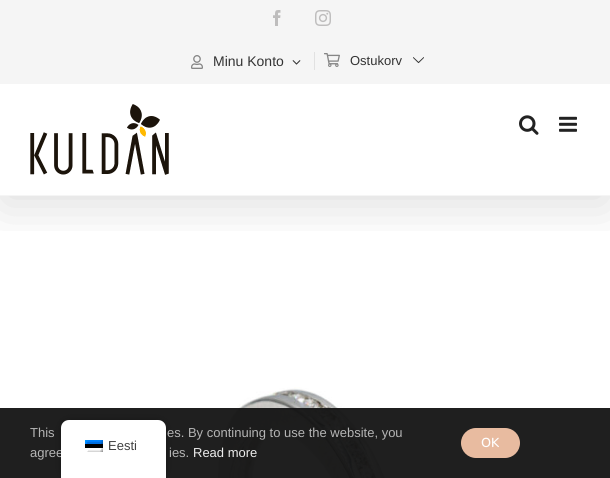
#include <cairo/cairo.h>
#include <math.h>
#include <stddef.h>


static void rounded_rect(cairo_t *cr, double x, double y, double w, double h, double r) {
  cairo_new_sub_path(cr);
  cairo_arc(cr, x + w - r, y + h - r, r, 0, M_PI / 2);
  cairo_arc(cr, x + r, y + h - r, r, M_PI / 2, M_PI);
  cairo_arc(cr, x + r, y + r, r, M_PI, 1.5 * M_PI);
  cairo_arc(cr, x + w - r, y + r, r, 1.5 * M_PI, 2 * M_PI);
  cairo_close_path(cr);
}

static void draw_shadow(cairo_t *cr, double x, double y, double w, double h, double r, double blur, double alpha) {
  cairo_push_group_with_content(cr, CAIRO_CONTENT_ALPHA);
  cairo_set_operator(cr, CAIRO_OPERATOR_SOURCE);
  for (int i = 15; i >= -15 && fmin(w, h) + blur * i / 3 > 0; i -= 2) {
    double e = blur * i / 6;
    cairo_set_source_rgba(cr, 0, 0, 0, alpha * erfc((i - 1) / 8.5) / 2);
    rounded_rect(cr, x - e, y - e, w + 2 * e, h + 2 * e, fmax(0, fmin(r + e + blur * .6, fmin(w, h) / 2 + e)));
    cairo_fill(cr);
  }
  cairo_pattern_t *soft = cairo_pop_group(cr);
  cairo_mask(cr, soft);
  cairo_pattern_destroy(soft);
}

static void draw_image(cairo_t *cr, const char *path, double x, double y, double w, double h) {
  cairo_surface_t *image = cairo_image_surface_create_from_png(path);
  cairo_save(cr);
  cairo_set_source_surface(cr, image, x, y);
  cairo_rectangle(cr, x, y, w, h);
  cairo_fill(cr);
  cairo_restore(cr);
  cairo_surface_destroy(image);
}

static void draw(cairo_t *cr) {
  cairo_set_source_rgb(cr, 1, 1, 1);
  cairo_paint(cr);
  cairo_save(cr);
  cairo_rectangle(cr, 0, 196, 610, 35);
  cairo_clip(cr);
  cairo_set_source_rgb(cr, 0, 0, 0);
  draw_shadow(cr, 2, 12, 606, 192, 0, 25, 0.14);
  cairo_restore(cr);
  cairo_set_source_rgb(cr, 245 / 255.0, 245 / 255.0, 245 / 255.0);
  cairo_rectangle(cr, 0, 0, 610, 84);
  cairo_fill(cr);
  draw_image(cr, "images/1.png", 273, 10, 8, 16);
  draw_image(cr, "images/2.png", 315, 10, 16, 16);
  draw_image(cr, "images/3.png", 191, 55, 12, 14);
  draw_image(cr, "images/4.png", 292, 60, 9, 5);
  cairo_set_source_rgb(cr, 225 / 255.0, 225 / 255.0, 225 / 255.0);
  cairo_rectangle(cr, 314, 52, 1, 18);
  cairo_fill(cr);
  draw_image(cr, "images/5.png", 324, 53, 16, 14);
  draw_image(cr, "images/6.png", 413, 57, 11, 7);
  cairo_set_source_rgb(cr, 245 / 255.0, 245 / 255.0, 245 / 255.0);
  cairo_rectangle(cr, 0, 195, 610, 1);
  cairo_fill(cr);
  draw_image(cr, "images/7.png", 30, 104, 139, 71);
  draw_image(cr, "images/8.png", 519, 115, 20, 20);
  draw_image(cr, "images/9.png", 559, 116, 18, 16);
  draw_image(cr, "images/10.png", 217, 387, 168, 91);
  cairo_set_source_rgba(cr, 20 / 255.0, 20 / 255.0, 20 / 255.0, 0.95);
  cairo_rectangle(cr, 0, 408, 610, 70);
  cairo_fill(cr);
  cairo_set_source_rgb(cr, 232 / 255.0, 187 / 255.0, 160 / 255.0);
  rounded_rect(cr, 461, 428, 59, 30, 15);
  cairo_fill(cr);
  cairo_set_source_rgb(cr, 0, 0, 0);
  draw_shadow(cr, 61, 420, 105, 58, 8, 4, 0.25);
  cairo_select_font_face(cr, "Liberation Sans", CAIRO_FONT_SLANT_NORMAL, CAIRO_FONT_WEIGHT_NORMAL);
  cairo_set_font_size(cr, 14);
  cairo_set_source_rgb(cr, 51 / 255.0, 51 / 255.0, 51 / 255.0);
  cairo_move_to(cr, 213, 66);
  cairo_show_text(cr, "Minu Konto");
  cairo_set_font_size(cr, 13);
  cairo_move_to(cr, 350, 65);
  cairo_show_text(cr, "Ostukorv");
  cairo_set_source_rgb(cr, 181 / 255.0, 181 / 255.0, 181 / 255.0);
  cairo_move_to(cr, 30, 437);
  cairo_show_text(cr, "This");
  cairo_move_to(cr, 167, 437);
  cairo_show_text(cr, "es. By continuing to use the website, you");
  cairo_move_to(cr, 30, 457);
  cairo_show_text(cr, "agree");
  cairo_move_to(cr, 169, 457);
  cairo_show_text(cr, "ies.");
  cairo_set_source_rgb(cr, 237 / 255.0, 237 / 255.0, 237 / 255.0);
  cairo_move_to(cr, 193, 457);
  cairo_show_text(cr, "Read more");
  cairo_select_font_face(cr, "Nunito SemiBold", CAIRO_FONT_SLANT_NORMAL, CAIRO_FONT_WEIGHT_NORMAL);
  cairo_set_source_rgb(cr, 1, 1, 1);
  cairo_move_to(cr, 481, 447);
  cairo_show_text(cr, "OK");
  cairo_new_path(cr);
  cairo_move_to(cr, 69, 420);
  cairo_line_to(cr, 158, 420);
  cairo_curve_to(cr, 162.5, 420, 166, 423.5, 166, 428);
  cairo_line_to(cr, 166, 478);
  cairo_line_to(cr, 61, 478);
  cairo_line_to(cr, 61, 428);
  cairo_curve_to(cr, 61, 423.5, 64.5, 420, 69, 420);
  cairo_close_path(cr);
  cairo_fill(cr);
  draw_image(cr, "images/11.png", 85, 440, 18, 12);
  cairo_select_font_face(cr, "Liberation Sans", CAIRO_FONT_SLANT_NORMAL, CAIRO_FONT_WEIGHT_NORMAL);
  cairo_set_source_rgb(cr, 64 / 255.0, 64 / 255.0, 64 / 255.0);
  cairo_move_to(cr, 108, 450);
  cairo_show_text(cr, "Eesti");
}

int main(void) {
  cairo_surface_t *surface = cairo_image_surface_create(CAIRO_FORMAT_RGB24, 610, 478);
  cairo_t *cr = cairo_create(surface);
  cairo_font_options_t *options = cairo_font_options_create();
  cairo_font_options_set_hint_metrics(options, CAIRO_HINT_METRICS_OFF);
  cairo_font_options_set_hint_style(options, CAIRO_HINT_STYLE_NONE);
  cairo_set_font_options(cr, options);
  cairo_set_miter_limit(cr, 4);
  draw(cr);
  cairo_surface_write_to_png(surface, "out.png");
  cairo_font_options_destroy(options);
  cairo_destroy(cr);
  cairo_surface_destroy(surface);
  return 0;
}
